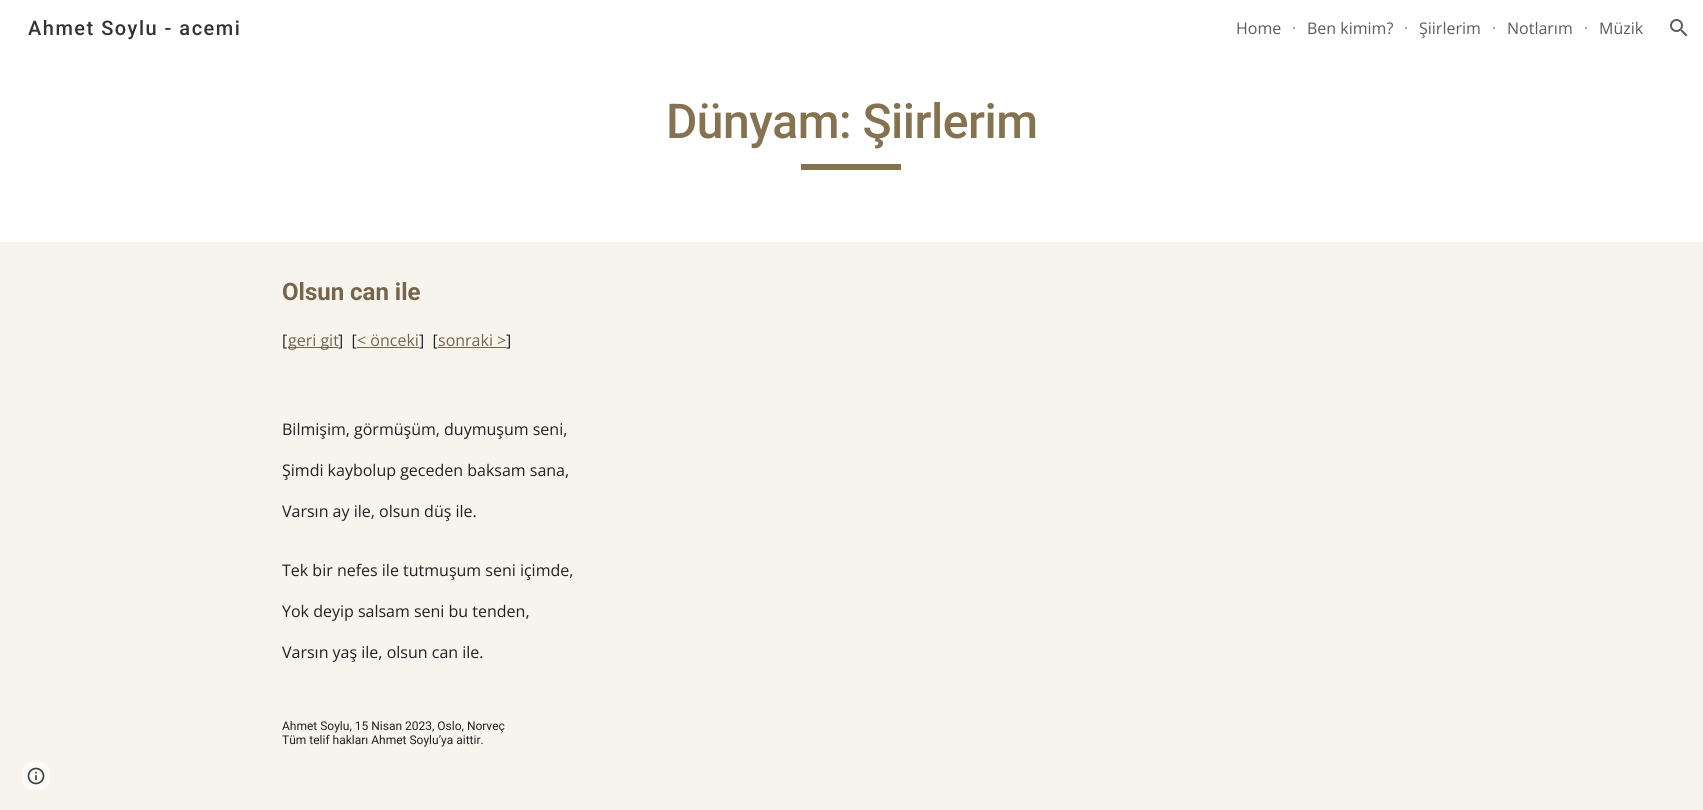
#include <cairo/cairo.h>
#include <math.h>
#include <stddef.h>


static void draw_spaced(cairo_t *cr, double x, double y, const char *s, double letter, double word) {
  cairo_move_to(cr, x, y);
  while (*s) {
    char ch[5] = {0};
    int n = 0;
    do ch[n++] = *s++; while ((*s & 0xC0) == 0x80);
    cairo_show_text(cr, ch);
    cairo_rel_move_to(cr, letter + word * (*ch == ' '), 0);
  }
}

static void rounded_rect(cairo_t *cr, double x, double y, double w, double h, double r) {
  cairo_new_sub_path(cr);
  cairo_arc(cr, x + w - r, y + h - r, r, 0, M_PI / 2);
  cairo_arc(cr, x + r, y + h - r, r, M_PI / 2, M_PI);
  cairo_arc(cr, x + r, y + r, r, M_PI, 1.5 * M_PI);
  cairo_arc(cr, x + w - r, y + r, r, 1.5 * M_PI, 2 * M_PI);
  cairo_close_path(cr);
}

static void draw_image(cairo_t *cr, const char *path, double x, double y, double w, double h) {
  cairo_surface_t *image = cairo_image_surface_create_from_png(path);
  cairo_save(cr);
  cairo_set_source_surface(cr, image, x, y);
  cairo_rectangle(cr, x, y, w, h);
  cairo_fill(cr);
  cairo_restore(cr);
  cairo_surface_destroy(image);
}

static void draw(cairo_t *cr) {
  cairo_set_source_rgb(cr, 1, 1, 1);
  cairo_paint(cr);
  cairo_set_source_rgb(cr, 158 / 255.0, 158 / 255.0, 158 / 255.0);
  cairo_rectangle(cr, 1293, 27, 2, 2);
  cairo_fill(cr);
  cairo_rectangle(cr, 1405, 27, 2, 2);
  cairo_fill(cr);
  cairo_rectangle(cr, 1493, 27, 2, 2);
  cairo_fill(cr);
  cairo_rectangle(cr, 1585, 27, 2, 2);
  cairo_fill(cr);
  draw_image(cr, "images/1.png", 1670, 19, 18, 18);
  cairo_set_source_rgb(cr, 133 / 255.0, 114 / 255.0, 81 / 255.0);
  cairo_rectangle(cr, 801, 164, 100, 6);
  cairo_fill(cr);
  cairo_set_source_rgb(cr, 247 / 255.0, 244 / 255.0, 238 / 255.0);
  cairo_rectangle(cr, 0, 242, 1703, 568);
  cairo_fill(cr);
  cairo_set_source_rgb(cr, 116 / 255.0, 102 / 255.0, 77 / 255.0);
  cairo_rectangle(cr, 288, 347, 50, 1);
  cairo_fill(cr);
  cairo_rectangle(cr, 357, 347, 62, 1);
  cairo_fill(cr);
  cairo_rectangle(cr, 438, 347, 68, 1);
  cairo_fill(cr);
  cairo_set_source_rgb(cr, 251 / 255.0, 250 / 255.0, 247 / 255.0);
  rounded_rect(cr, 22, 762, 28, 28, 10);
  cairo_fill(cr);
  draw_image(cr, "images/2.png", 27, 767, 18, 18);
  cairo_select_font_face(cr, "Roboto Medium", CAIRO_FONT_SLANT_NORMAL, CAIRO_FONT_WEIGHT_NORMAL);
  cairo_set_font_size(cr, 20);
  cairo_set_source_rgb(cr, 51 / 255.0, 51 / 255.0, 51 / 255.0);
  draw_spaced(cr, 28, 35, "Ahmet Soylu - acemi", 1.5, 0);
  cairo_select_font_face(cr, "Open Sans", CAIRO_FONT_SLANT_NORMAL, CAIRO_FONT_WEIGHT_NORMAL);
  cairo_set_font_size(cr, 16);
  cairo_set_source_rgb(cr, 92 / 255.0, 92 / 255.0, 92 / 255.0);
  cairo_move_to(cr, 1236, 34);
  cairo_show_text(cr, "Home");
  cairo_move_to(cr, 1307, 34);
  cairo_show_text(cr, "Ben kimim?");
  cairo_move_to(cr, 1419, 34);
  cairo_show_text(cr, "Şiirlerim");
  cairo_move_to(cr, 1507, 34);
  cairo_show_text(cr, "Notlarım");
  cairo_move_to(cr, 1599, 34);
  cairo_show_text(cr, "Müzik");
  cairo_select_font_face(cr, "Roboto Medium", CAIRO_FONT_SLANT_NORMAL, CAIRO_FONT_WEIGHT_NORMAL);
  cairo_set_font_size(cr, 48);
  cairo_set_source_rgb(cr, 133 / 255.0, 114 / 255.0, 81 / 255.0);
  draw_spaced(cr, 666, 138, "Dünyam: Şiirlerim", -0.5, 0);
  cairo_select_font_face(cr, "Roboto", CAIRO_FONT_SLANT_NORMAL, CAIRO_FONT_WEIGHT_BOLD);
  cairo_set_font_size(cr, 24);
  cairo_set_source_rgb(cr, 116 / 255.0, 102 / 255.0, 77 / 255.0);
  cairo_move_to(cr, 282, 300);
  cairo_show_text(cr, "Olsun can ile");
  cairo_select_font_face(cr, "Open Sans", CAIRO_FONT_SLANT_NORMAL, CAIRO_FONT_WEIGHT_NORMAL);
  cairo_set_font_size(cr, 16);
  cairo_set_source_rgb(cr, 33 / 255.0, 33 / 255.0, 33 / 255.0);
  cairo_move_to(cr, 282, 346);
  cairo_show_text(cr, "[");
  cairo_set_source_rgb(cr, 116 / 255.0, 102 / 255.0, 77 / 255.0);
  cairo_move_to(cr, 288, 346);
  cairo_show_text(cr, "geri git");
  cairo_set_source_rgb(cr, 33 / 255.0, 33 / 255.0, 33 / 255.0);
  cairo_move_to(cr, 338, 346);
  cairo_show_text(cr, "]  [");
  cairo_set_source_rgb(cr, 116 / 255.0, 102 / 255.0, 77 / 255.0);
  cairo_move_to(cr, 357, 346);
  cairo_show_text(cr, "< önceki");
  cairo_set_source_rgb(cr, 33 / 255.0, 33 / 255.0, 33 / 255.0);
  cairo_move_to(cr, 419, 346);
  cairo_show_text(cr, "]  [");
  cairo_set_source_rgb(cr, 116 / 255.0, 102 / 255.0, 77 / 255.0);
  cairo_move_to(cr, 438, 346);
  cairo_show_text(cr, "sonraki >");
  cairo_set_source_rgb(cr, 33 / 255.0, 33 / 255.0, 33 / 255.0);
  cairo_move_to(cr, 506, 346);
  cairo_show_text(cr, "]");
  cairo_move_to(cr, 282, 435);
  cairo_show_text(cr, "Bilmişim, görmüşüm, duymuşum seni,");
  cairo_move_to(cr, 282, 476);
  cairo_show_text(cr, "Şimdi kaybolup geceden baksam sana,");
  cairo_move_to(cr, 282, 517);
  cairo_show_text(cr, "Varsın ay ile, olsun düş ile.");
  cairo_move_to(cr, 282, 576);
  cairo_show_text(cr, "Tek bir nefes ile tutmuşum seni içimde,");
  cairo_move_to(cr, 282, 617);
  cairo_show_text(cr, "Yok deyip salsam seni bu tenden,");
  cairo_move_to(cr, 282, 658);
  cairo_show_text(cr, "Varsın yaş ile, olsun can ile.");
  cairo_select_font_face(cr, "Roboto", CAIRO_FONT_SLANT_NORMAL, CAIRO_FONT_WEIGHT_NORMAL);
  cairo_set_font_size(cr, 12);
  cairo_move_to(cr, 282, 730);
  cairo_show_text(cr, "Ahmet Soylu, 15 Nisan 2023, Oslo, Norveç");
  cairo_move_to(cr, 282, 744);
  cairo_show_text(cr, "Tüm telif hakları Ahmet Soylu’ya aittir.");
}

int main(void) {
  cairo_surface_t *surface = cairo_image_surface_create(CAIRO_FORMAT_RGB24, 1703, 810);
  cairo_t *cr = cairo_create(surface);
  cairo_font_options_t *options = cairo_font_options_create();
  cairo_font_options_set_hint_metrics(options, CAIRO_HINT_METRICS_OFF);
  cairo_font_options_set_hint_style(options, CAIRO_HINT_STYLE_NONE);
  cairo_set_font_options(cr, options);
  cairo_set_miter_limit(cr, 4);
  draw(cr);
  cairo_surface_write_to_png(surface, "out.png");
  cairo_font_options_destroy(options);
  cairo_destroy(cr);
  cairo_surface_destroy(surface);
  return 0;
}
